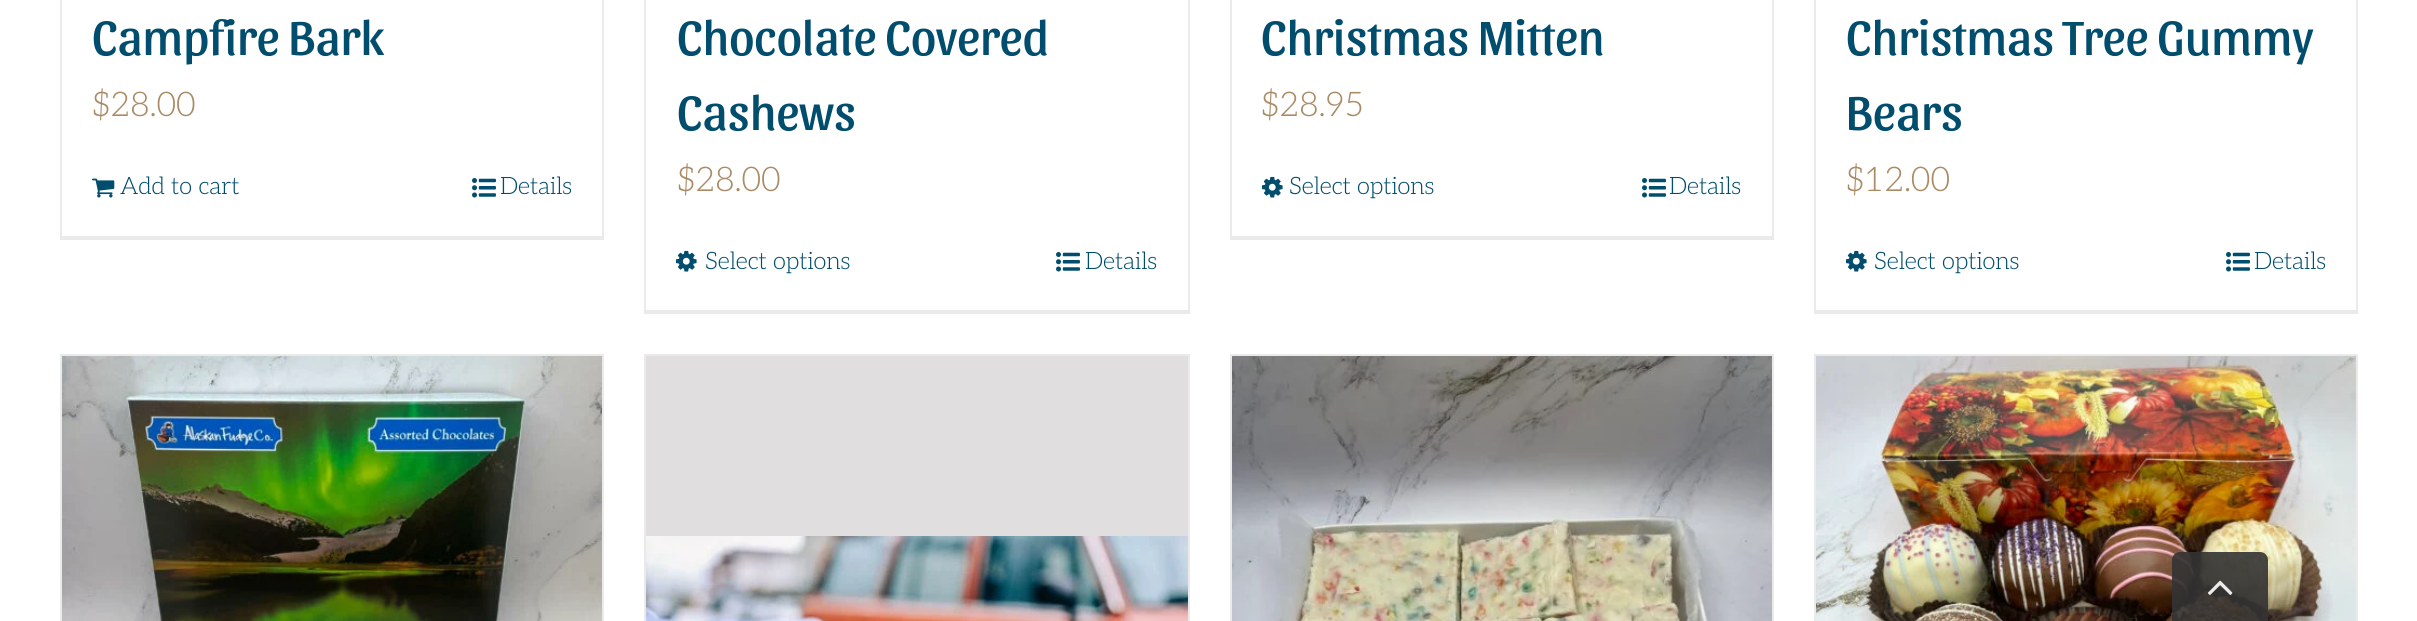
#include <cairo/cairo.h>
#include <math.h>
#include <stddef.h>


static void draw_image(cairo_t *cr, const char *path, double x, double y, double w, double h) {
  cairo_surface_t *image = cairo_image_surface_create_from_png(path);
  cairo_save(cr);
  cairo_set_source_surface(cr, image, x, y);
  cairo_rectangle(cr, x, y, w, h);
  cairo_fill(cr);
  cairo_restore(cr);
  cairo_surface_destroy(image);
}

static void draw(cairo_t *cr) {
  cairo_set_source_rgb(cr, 1, 1, 1);
  cairo_paint(cr);
  cairo_set_source_rgb(cr, 235 / 255.0, 234 / 255.0, 234 / 255.0);
  cairo_rectangle(cr, 602, 0, 2, 240);
  cairo_fill(cr);
  cairo_rectangle(cr, 60, 236, 544, 4);
  cairo_fill(cr);
  cairo_rectangle(cr, 60, 0, 2, 240);
  cairo_fill(cr);
  draw_image(cr, "images/1.png", 92, 178, 23, 20);
  draw_image(cr, "images/2.png", 472, 178, 24, 20);
  cairo_rectangle(cr, 1188, 0, 2, 314);
  cairo_fill(cr);
  cairo_rectangle(cr, 644, 310, 546, 4);
  cairo_fill(cr);
  cairo_rectangle(cr, 644, 0, 2, 314);
  cairo_fill(cr);
  draw_image(cr, "images/3.png", 676, 250, 21, 22);
  draw_image(cr, "images/2.png", 1056, 252, 24, 20);
  cairo_rectangle(cr, 1772, 0, 2, 240);
  cairo_fill(cr);
  cairo_rectangle(cr, 1230, 236, 544, 4);
  cairo_fill(cr);
  cairo_rectangle(cr, 1230, 0, 2, 240);
  cairo_fill(cr);
  draw_image(cr, "images/3.png", 1262, 176, 21, 22);
  draw_image(cr, "images/2.png", 1642, 178, 24, 20);
  cairo_rectangle(cr, 2356, 0, 2, 314);
  cairo_fill(cr);
  cairo_rectangle(cr, 1814, 310, 544, 4);
  cairo_fill(cr);
  cairo_rectangle(cr, 1814, 0, 2, 314);
  cairo_fill(cr);
  draw_image(cr, "images/3.png", 1846, 250, 21, 22);
  draw_image(cr, "images/2.png", 2226, 252, 24, 20);
  cairo_rectangle(cr, 60, 354, 544, 2);
  cairo_fill(cr);
  cairo_rectangle(cr, 602, 354, 2, 267);
  cairo_fill(cr);
  cairo_rectangle(cr, 60, 354, 2, 267);
  cairo_fill(cr);
  draw_image(cr, "images/4.png", 62, 356, 540, 265);
  cairo_rectangle(cr, 644, 354, 546, 2);
  cairo_fill(cr);
  cairo_rectangle(cr, 1188, 354, 2, 267);
  cairo_fill(cr);
  cairo_rectangle(cr, 644, 354, 2, 267);
  cairo_fill(cr);
  cairo_set_source_rgb(cr, 224 / 255.0, 222 / 255.0, 222 / 255.0);
  cairo_rectangle(cr, 646, 356, 542, 180);
  cairo_fill(cr);
  draw_image(cr, "images/5.png", 646, 536, 542, 85);
  cairo_set_source_rgb(cr, 235 / 255.0, 234 / 255.0, 234 / 255.0);
  cairo_rectangle(cr, 1230, 354, 544, 2);
  cairo_fill(cr);
  cairo_rectangle(cr, 1772, 354, 2, 267);
  cairo_fill(cr);
  cairo_rectangle(cr, 1230, 354, 2, 267);
  cairo_fill(cr);
  draw_image(cr, "images/6.png", 1232, 356, 540, 265);
  cairo_rectangle(cr, 1814, 354, 544, 2);
  cairo_fill(cr);
  cairo_rectangle(cr, 2356, 354, 2, 267);
  cairo_fill(cr);
  cairo_rectangle(cr, 1814, 354, 2, 267);
  cairo_fill(cr);
  draw_image(cr, "images/7.png", 1816, 356, 540, 265);
  cairo_set_source_rgba(cr, 51 / 255.0, 51 / 255.0, 51 / 255.0, 0.9);
  cairo_new_path(cr);
  cairo_move_to(cr, 2180, 552);
  cairo_line_to(cr, 2260, 552);
  cairo_curve_to(cr, 2264.5, 552, 2268, 555.5, 2268, 560);
  cairo_line_to(cr, 2268, 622);
  cairo_line_to(cr, 2172, 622);
  cairo_line_to(cr, 2172, 560);
  cairo_curve_to(cr, 2172, 555.5, 2175.5, 552, 2180, 552);
  cairo_close_path(cr);
  cairo_fill(cr);
  draw_image(cr, "images/8.png", 2208, 580, 25, 15);
  cairo_select_font_face(cr, "Sansita", CAIRO_FONT_SLANT_NORMAL, CAIRO_FONT_WEIGHT_NORMAL);
  cairo_set_font_size(cr, 50);
  cairo_set_source_rgb(cr, 1 / 255.0, 77 / 255.0, 109 / 255.0);
  cairo_move_to(cr, 92, 55);
  cairo_show_text(cr, "Campfire Bark");
  cairo_select_font_face(cr, "Aleo Light", CAIRO_FONT_SLANT_NORMAL, CAIRO_FONT_WEIGHT_NORMAL);
  cairo_set_font_size(cr, 34);
  cairo_set_source_rgb(cr, 171 / 255.0, 139 / 255.0, 101 / 255.0);
  cairo_move_to(cr, 92, 116);
  cairo_show_text(cr, "$28.00");
  cairo_set_font_size(cr, 24);
  cairo_set_source_rgb(cr, 1 / 255.0, 77 / 255.0, 109 / 255.0);
  cairo_move_to(cr, 120, 194);
  cairo_show_text(cr, "Add to cart");
  cairo_move_to(cr, 500, 194);
  cairo_show_text(cr, "Details");
  cairo_select_font_face(cr, "Sansita", CAIRO_FONT_SLANT_NORMAL, CAIRO_FONT_WEIGHT_NORMAL);
  cairo_set_font_size(cr, 50);
  cairo_move_to(cr, 677, 55);
  cairo_show_text(cr, "Chocolate Covered");
  cairo_move_to(cr, 677, 130);
  cairo_show_text(cr, "Cashews");
  cairo_select_font_face(cr, "Aleo Light", CAIRO_FONT_SLANT_NORMAL, CAIRO_FONT_WEIGHT_NORMAL);
  cairo_set_font_size(cr, 34);
  cairo_set_source_rgb(cr, 171 / 255.0, 139 / 255.0, 101 / 255.0);
  cairo_move_to(cr, 677, 191);
  cairo_show_text(cr, "$28.00");
  cairo_set_font_size(cr, 24);
  cairo_set_source_rgb(cr, 1 / 255.0, 77 / 255.0, 109 / 255.0);
  cairo_move_to(cr, 705, 269);
  cairo_show_text(cr, "Select options");
  cairo_move_to(cr, 1085, 269);
  cairo_show_text(cr, "Details");
  cairo_select_font_face(cr, "Sansita", CAIRO_FONT_SLANT_NORMAL, CAIRO_FONT_WEIGHT_NORMAL);
  cairo_set_font_size(cr, 50);
  cairo_move_to(cr, 1261, 55);
  cairo_show_text(cr, "Christmas Mitten");
  cairo_select_font_face(cr, "Aleo Light", CAIRO_FONT_SLANT_NORMAL, CAIRO_FONT_WEIGHT_NORMAL);
  cairo_set_font_size(cr, 34);
  cairo_set_source_rgb(cr, 171 / 255.0, 139 / 255.0, 101 / 255.0);
  cairo_move_to(cr, 1261, 116);
  cairo_show_text(cr, "$28.95");
  cairo_set_font_size(cr, 24);
  cairo_set_source_rgb(cr, 1 / 255.0, 77 / 255.0, 109 / 255.0);
  cairo_move_to(cr, 1289, 194);
  cairo_show_text(cr, "Select options");
  cairo_move_to(cr, 1669, 194);
  cairo_show_text(cr, "Details");
  cairo_select_font_face(cr, "Sansita", CAIRO_FONT_SLANT_NORMAL, CAIRO_FONT_WEIGHT_NORMAL);
  cairo_set_font_size(cr, 50);
  cairo_move_to(cr, 1846, 55);
  cairo_show_text(cr, "Christmas Tree Gummy");
  cairo_move_to(cr, 1846, 130);
  cairo_show_text(cr, "Bears");
  cairo_select_font_face(cr, "Aleo Light", CAIRO_FONT_SLANT_NORMAL, CAIRO_FONT_WEIGHT_NORMAL);
  cairo_set_font_size(cr, 34);
  cairo_set_source_rgb(cr, 171 / 255.0, 139 / 255.0, 101 / 255.0);
  cairo_move_to(cr, 1846, 191);
  cairo_show_text(cr, "$12.00");
  cairo_set_font_size(cr, 24);
  cairo_set_source_rgb(cr, 1 / 255.0, 77 / 255.0, 109 / 255.0);
  cairo_move_to(cr, 1874, 269);
  cairo_show_text(cr, "Select options");
  cairo_move_to(cr, 2254, 269);
  cairo_show_text(cr, "Details");
}

int main(void) {
  cairo_surface_t *surface = cairo_image_surface_create(CAIRO_FORMAT_RGB24, 2417, 621);
  cairo_t *cr = cairo_create(surface);
  cairo_font_options_t *options = cairo_font_options_create();
  cairo_font_options_set_hint_metrics(options, CAIRO_HINT_METRICS_OFF);
  cairo_font_options_set_hint_style(options, CAIRO_HINT_STYLE_NONE);
  cairo_set_font_options(cr, options);
  cairo_set_miter_limit(cr, 4);
  draw(cr);
  cairo_surface_write_to_png(surface, "out.png");
  cairo_font_options_destroy(options);
  cairo_destroy(cr);
  cairo_surface_destroy(surface);
  return 0;
}
